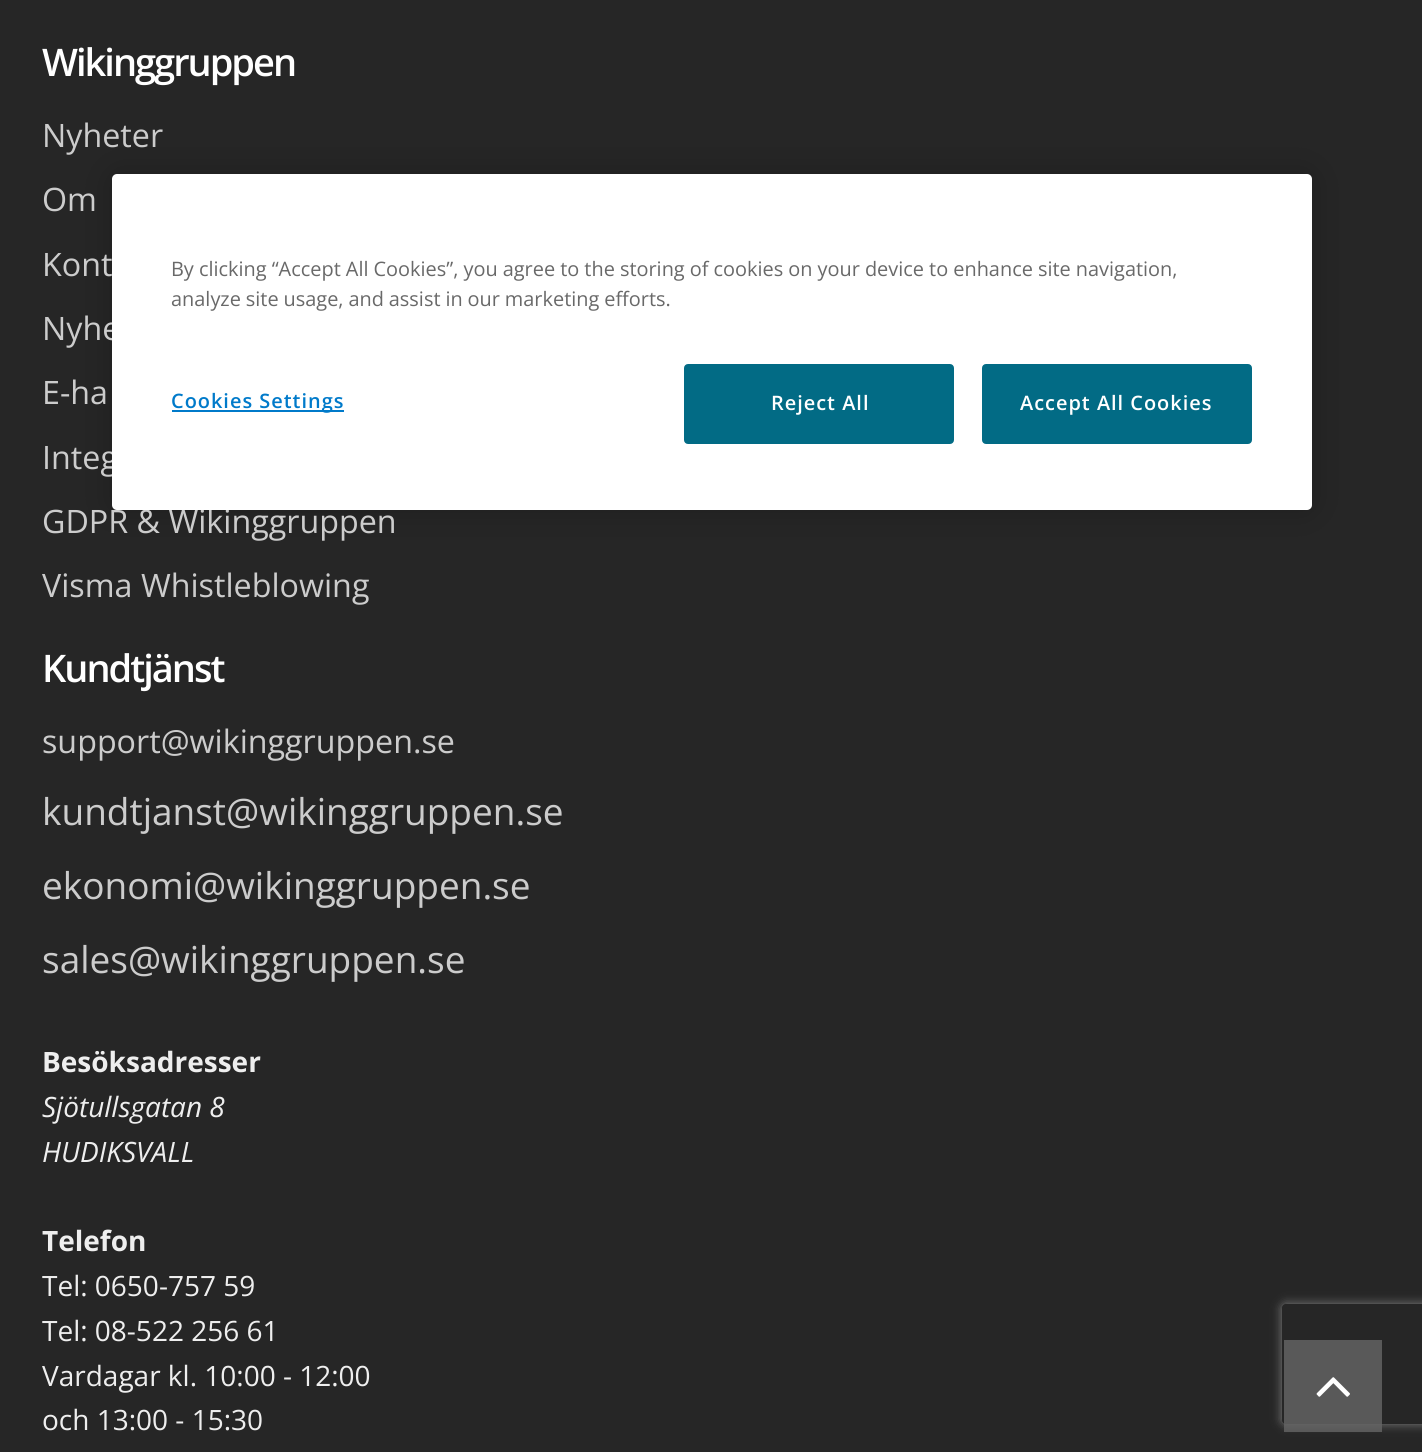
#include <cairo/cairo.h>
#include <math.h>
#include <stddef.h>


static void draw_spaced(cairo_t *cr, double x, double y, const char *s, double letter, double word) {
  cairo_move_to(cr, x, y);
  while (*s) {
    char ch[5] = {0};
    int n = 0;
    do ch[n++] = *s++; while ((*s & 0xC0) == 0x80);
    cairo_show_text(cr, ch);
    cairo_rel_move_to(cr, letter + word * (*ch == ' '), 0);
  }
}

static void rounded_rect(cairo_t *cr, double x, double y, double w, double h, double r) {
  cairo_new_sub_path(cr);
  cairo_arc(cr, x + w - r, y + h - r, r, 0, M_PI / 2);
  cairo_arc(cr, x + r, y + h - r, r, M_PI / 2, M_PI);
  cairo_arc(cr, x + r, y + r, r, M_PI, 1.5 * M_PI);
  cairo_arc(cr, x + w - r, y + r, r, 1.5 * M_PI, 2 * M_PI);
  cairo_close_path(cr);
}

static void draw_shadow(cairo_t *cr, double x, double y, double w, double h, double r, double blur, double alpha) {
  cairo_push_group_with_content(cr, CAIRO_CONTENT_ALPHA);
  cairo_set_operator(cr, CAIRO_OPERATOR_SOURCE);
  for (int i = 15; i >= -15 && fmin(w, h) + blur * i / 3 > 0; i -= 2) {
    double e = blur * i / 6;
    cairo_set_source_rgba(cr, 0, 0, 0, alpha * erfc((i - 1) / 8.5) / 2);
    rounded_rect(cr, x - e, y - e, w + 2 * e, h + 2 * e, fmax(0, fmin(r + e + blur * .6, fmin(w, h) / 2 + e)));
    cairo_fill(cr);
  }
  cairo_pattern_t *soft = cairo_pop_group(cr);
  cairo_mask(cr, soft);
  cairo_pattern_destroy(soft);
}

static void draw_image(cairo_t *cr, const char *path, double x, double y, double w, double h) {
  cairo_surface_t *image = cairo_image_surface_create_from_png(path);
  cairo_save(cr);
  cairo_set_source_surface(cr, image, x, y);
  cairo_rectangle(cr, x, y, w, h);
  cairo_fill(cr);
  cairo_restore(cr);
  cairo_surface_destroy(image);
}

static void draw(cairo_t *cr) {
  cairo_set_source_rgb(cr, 38 / 255.0, 38 / 255.0, 38 / 255.0);
  cairo_paint(cr);
  cairo_set_source_rgb(cr, 0, 0, 0);
  draw_shadow(cr, 112, 174, 1200, 336, 5, 18, 0.2);
  cairo_save(cr);
  cairo_set_fill_rule(cr, CAIRO_FILL_RULE_EVEN_ODD);
  cairo_new_path(cr);
  cairo_move_to(cr, 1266, 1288);
  cairo_line_to(cr, 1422, 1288);
  cairo_line_to(cr, 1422, 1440);
  cairo_line_to(cr, 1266, 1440);
  cairo_close_path(cr);
  cairo_move_to(cr, 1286, 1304);
  cairo_line_to(cr, 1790, 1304);
  cairo_curve_to(cr, 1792, 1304, 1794, 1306, 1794, 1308);
  cairo_line_to(cr, 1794, 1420);
  cairo_curve_to(cr, 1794, 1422, 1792, 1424, 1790, 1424);
  cairo_line_to(cr, 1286, 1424);
  cairo_curve_to(cr, 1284, 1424, 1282, 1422, 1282, 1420);
  cairo_line_to(cr, 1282, 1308);
  cairo_curve_to(cr, 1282, 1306, 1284, 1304, 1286, 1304);
  cairo_close_path(cr);
  cairo_clip(cr);
  cairo_set_source_rgb(cr, 128 / 255.0, 128 / 255.0, 128 / 255.0);
  draw_shadow(cr, 1282, 1304, 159, 120, 4, 5, 1);
  cairo_restore(cr);
  cairo_set_source_rgba(cr, 102 / 255.0, 102 / 255.0, 102 / 255.0, 0.8);
  cairo_rectangle(cr, 1284, 1340, 98, 92);
  cairo_fill(cr);
  draw_image(cr, "images/1.png", 1316, 1377, 34, 20);
  cairo_select_font_face(cr, "Open Sans SemiBold", CAIRO_FONT_SLANT_NORMAL, CAIRO_FONT_WEIGHT_NORMAL);
  cairo_set_font_size(cr, 38);
  cairo_set_source_rgb(cr, 1, 1, 1);
  draw_spaced(cr, 42, 76, "Wikinggruppen", -2, 0);
  cairo_select_font_face(cr, "Open Sans", CAIRO_FONT_SLANT_NORMAL, CAIRO_FONT_WEIGHT_NORMAL);
  cairo_set_font_size(cr, 32.25);
  cairo_set_source_rgb(cr, 204 / 255.0, 204 / 255.0, 204 / 255.0);
  cairo_move_to(cr, 42, 147);
  cairo_show_text(cr, "Nyheter");
  cairo_move_to(cr, 42, 211);
  cairo_show_text(cr, "Om");
  cairo_move_to(cr, 42, 276);
  cairo_show_text(cr, "Kont");
  cairo_move_to(cr, 42, 340);
  cairo_show_text(cr, "Nyhe");
  cairo_move_to(cr, 42, 404);
  cairo_show_text(cr, "E-ha");
  cairo_move_to(cr, 42, 469);
  cairo_show_text(cr, "Integ");
  cairo_move_to(cr, 42, 533);
  cairo_show_text(cr, "GDPR & Wikinggruppen");
  cairo_move_to(cr, 42, 597);
  cairo_show_text(cr, "Visma Whistleblowing");
  cairo_select_font_face(cr, "Open Sans SemiBold", CAIRO_FONT_SLANT_NORMAL, CAIRO_FONT_WEIGHT_NORMAL);
  cairo_set_font_size(cr, 38);
  cairo_set_source_rgb(cr, 1, 1, 1);
  draw_spaced(cr, 42, 682, "Kundtjänst", -2, 0);
  cairo_select_font_face(cr, "Open Sans", CAIRO_FONT_SLANT_NORMAL, CAIRO_FONT_WEIGHT_NORMAL);
  cairo_set_font_size(cr, 32.25);
  cairo_set_source_rgb(cr, 204 / 255.0, 204 / 255.0, 204 / 255.0);
  cairo_move_to(cr, 42, 753);
  cairo_show_text(cr, "support@wikinggruppen.se");
  cairo_set_font_size(cr, 37);
  cairo_move_to(cr, 42, 825);
  cairo_show_text(cr, "kundtjanst@wikinggruppen.se");
  cairo_move_to(cr, 42, 899);
  cairo_show_text(cr, "ekonomi@wikinggruppen.se");
  cairo_move_to(cr, 42, 973);
  cairo_show_text(cr, "sales@wikinggruppen.se");
  cairo_select_font_face(cr, "Open Sans", CAIRO_FONT_SLANT_NORMAL, CAIRO_FONT_WEIGHT_BOLD);
  cairo_set_font_size(cr, 28);
  cairo_set_source_rgb(cr, 238 / 255.0, 238 / 255.0, 238 / 255.0);
  cairo_move_to(cr, 42, 1072);
  cairo_show_text(cr, "Besöksadresser");
  cairo_select_font_face(cr, "Open Sans", CAIRO_FONT_SLANT_ITALIC, CAIRO_FONT_WEIGHT_NORMAL);
  cairo_move_to(cr, 42, 1117);
  cairo_show_text(cr, "Sjötullsgatan 8");
  cairo_move_to(cr, 42, 1162);
  cairo_show_text(cr, "HUDIKSVALL");
  cairo_select_font_face(cr, "Open Sans", CAIRO_FONT_SLANT_NORMAL, CAIRO_FONT_WEIGHT_BOLD);
  cairo_move_to(cr, 42, 1251);
  cairo_show_text(cr, "Telefon");
  cairo_select_font_face(cr, "Open Sans", CAIRO_FONT_SLANT_NORMAL, CAIRO_FONT_WEIGHT_NORMAL);
  cairo_move_to(cr, 42, 1296);
  cairo_show_text(cr, "Tel: 0650-757 59");
  cairo_move_to(cr, 42, 1341);
  cairo_show_text(cr, "Tel: 08-522 256 61");
  cairo_move_to(cr, 42, 1386);
  cairo_show_text(cr, "Vardagar kl. 10:00 - 12:00");
  cairo_move_to(cr, 42, 1430);
  cairo_show_text(cr, "och 13:00 - 15:30");
  cairo_set_source_rgb(cr, 1, 1, 1);
  rounded_rect(cr, 112, 174, 1200, 336, 5);
  cairo_fill(cr);
  cairo_set_font_size(cr, 19.92);
  cairo_set_source_rgb(cr, 105 / 255.0, 105 / 255.0, 105 / 255.0);
  draw_spaced(cr, 171, 276, "By clicking “Accept All Cookies”, you agree to the storing of cookies on your device to enhance site navigation,", 0, -0.1);
  draw_spaced(cr, 171, 306, "analyze site usage, and assist in our marketing efforts.", 0, -0.25);
  cairo_set_source_rgb(cr, 0, 122 / 255.0, 202 / 255.0);
  cairo_rectangle(cr, 172, 410, 172, 2);
  cairo_fill(cr);
  cairo_select_font_face(cr, "Open Sans SemiBold", CAIRO_FONT_SLANT_NORMAL, CAIRO_FONT_WEIGHT_NORMAL);
  draw_spaced(cr, 171, 408, "Cookies Settings", 1, 0);
  cairo_set_source_rgb(cr, 2 / 255.0, 107 / 255.0, 133 / 255.0);
  rounded_rect(cr, 685, 365, 268, 78, 3);
  cairo_fill_preserve(cr);
  cairo_stroke(cr);
  cairo_set_source_rgb(cr, 1, 1, 1);
  draw_spaced(cr, 771, 410, "Reject All", 1, 0);
  cairo_set_source_rgb(cr, 2 / 255.0, 107 / 255.0, 133 / 255.0);
  rounded_rect(cr, 983, 365, 268, 78, 3);
  cairo_fill_preserve(cr);
  cairo_stroke(cr);
  cairo_set_source_rgb(cr, 1, 1, 1);
  draw_spaced(cr, 1020, 410, "Accept All Cookies", 1, 0);
}

int main(void) {
  cairo_surface_t *surface = cairo_image_surface_create(CAIRO_FORMAT_RGB24, 1422, 1452);
  cairo_t *cr = cairo_create(surface);
  cairo_font_options_t *options = cairo_font_options_create();
  cairo_font_options_set_hint_metrics(options, CAIRO_HINT_METRICS_OFF);
  cairo_font_options_set_hint_style(options, CAIRO_HINT_STYLE_NONE);
  cairo_set_font_options(cr, options);
  cairo_set_miter_limit(cr, 4);
  draw(cr);
  cairo_surface_write_to_png(surface, "out.png");
  cairo_font_options_destroy(options);
  cairo_destroy(cr);
  cairo_surface_destroy(surface);
  return 0;
}
